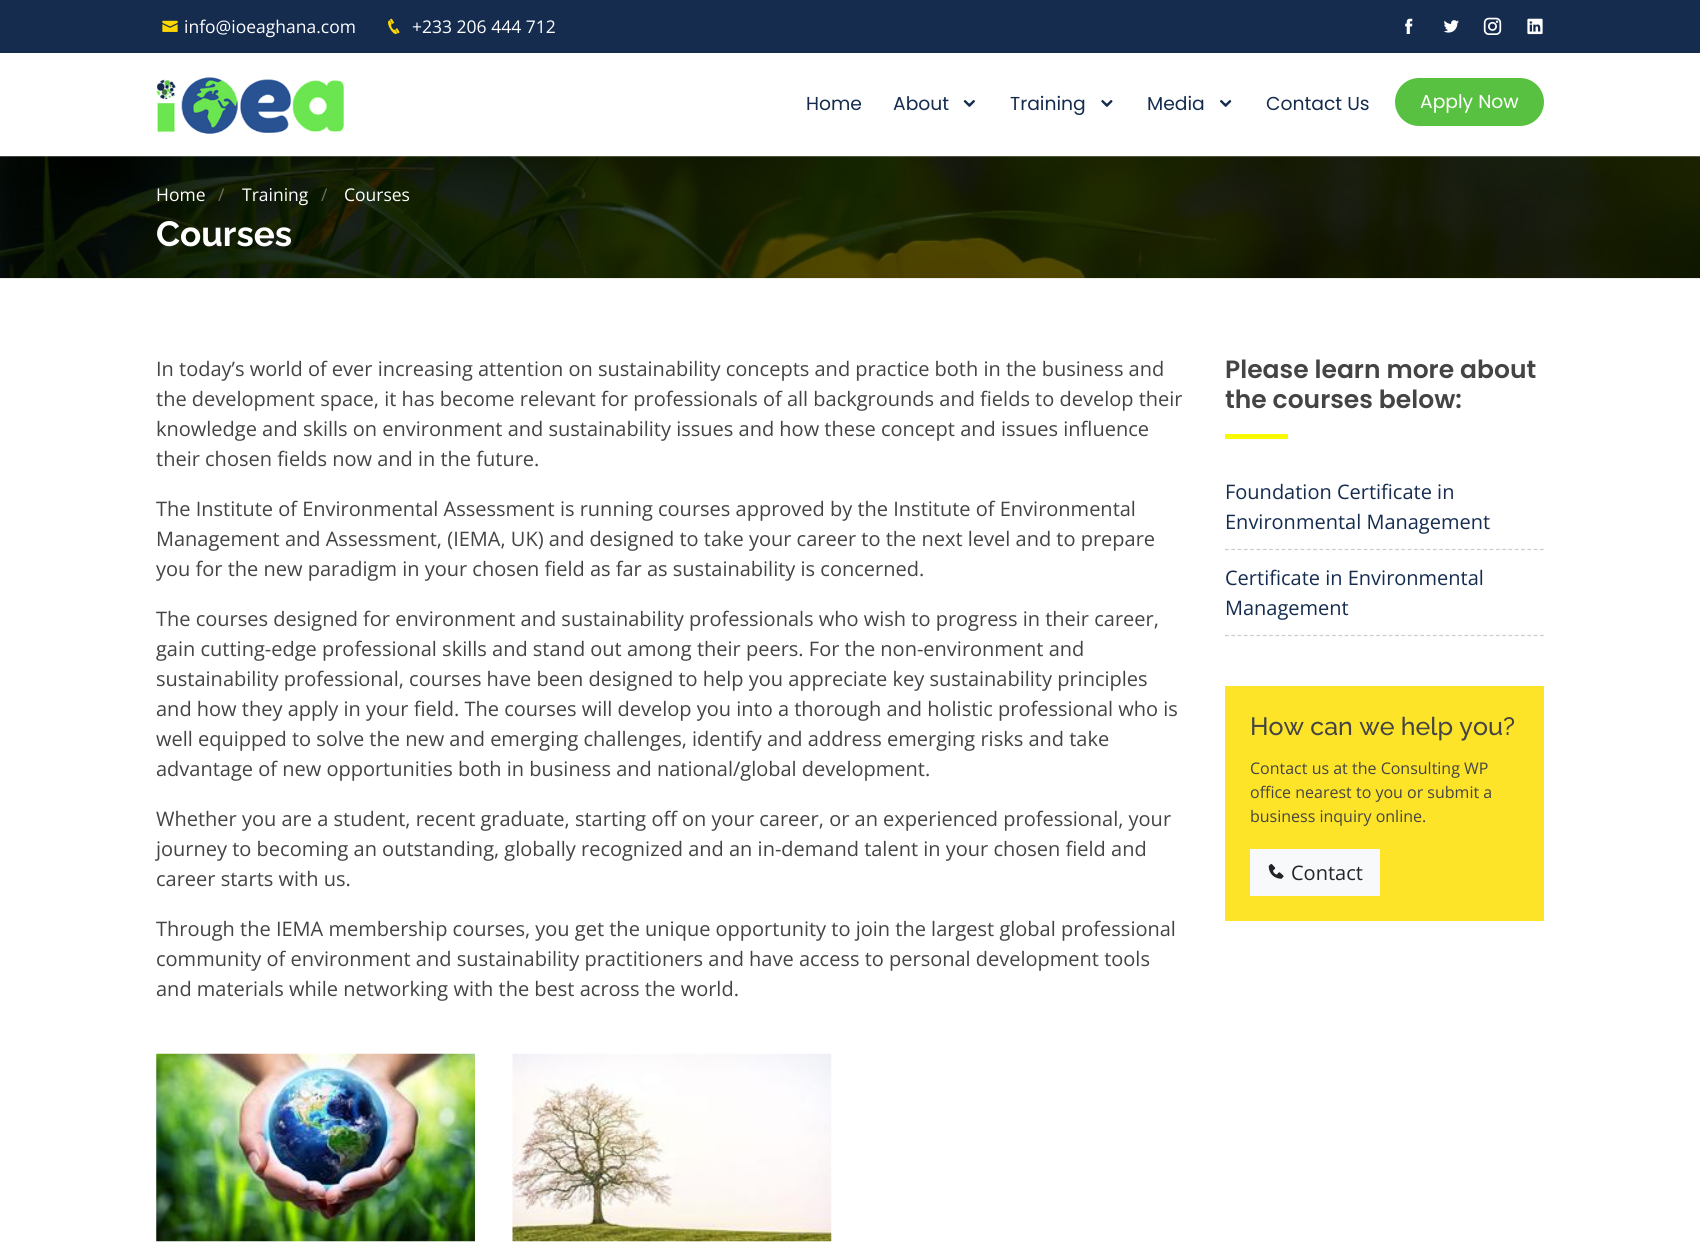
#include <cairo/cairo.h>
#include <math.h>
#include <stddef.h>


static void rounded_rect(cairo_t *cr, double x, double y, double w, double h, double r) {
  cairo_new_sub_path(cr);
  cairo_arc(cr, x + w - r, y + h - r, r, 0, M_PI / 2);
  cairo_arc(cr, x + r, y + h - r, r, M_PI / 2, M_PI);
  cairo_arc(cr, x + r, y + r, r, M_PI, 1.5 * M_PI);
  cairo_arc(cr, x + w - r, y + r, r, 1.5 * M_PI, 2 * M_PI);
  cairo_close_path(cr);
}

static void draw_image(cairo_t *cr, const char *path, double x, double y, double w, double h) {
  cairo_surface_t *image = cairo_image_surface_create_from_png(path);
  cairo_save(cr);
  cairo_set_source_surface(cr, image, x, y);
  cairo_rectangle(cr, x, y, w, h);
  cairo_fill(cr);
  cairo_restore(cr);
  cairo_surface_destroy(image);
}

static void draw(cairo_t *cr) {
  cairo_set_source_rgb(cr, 1, 1, 1);
  cairo_paint(cr);
  cairo_set_source_rgb(cr, 21 / 255.0, 44 / 255.0, 79 / 255.0);
  cairo_rectangle(cr, 0, 0, 1700, 53);
  cairo_fill(cr);
  draw_image(cr, "images/1.png", 162, 20, 16, 12);
  draw_image(cr, "images/2.png", 388, 18, 12, 16);
  draw_image(cr, "images/3.png", 1405, 18, 8, 16);
  draw_image(cr, "images/4.png", 1443, 20, 16, 13);
  draw_image(cr, "images/5.png", 1483, 17, 19, 18);
  draw_image(cr, "images/6.png", 1527, 18, 16, 17);
  draw_image(cr, "images/7.png", 156, 77, 188, 57);
  draw_image(cr, "images/8.png", 963, 100, 12, 7);
  draw_image(cr, "images/9.png", 1101, 100, 12, 7);
  draw_image(cr, "images/10.png", 1220, 100, 12, 7);
  cairo_set_source_rgb(cr, 89 / 255.0, 193 / 255.0, 65 / 255.0);
  rounded_rect(cr, 1395, 78, 149, 48, 24);
  cairo_fill(cr);
  draw_image(cr, "images/11.png", 0, 156, 1700, 122);
  cairo_set_source_rgb(cr, 237 / 255.0, 237 / 255.0, 237 / 255.0);
  cairo_rectangle(cr, 0, 278, 1700, 1);
  cairo_fill(cr);
  draw_image(cr, "images/12.png", 156, 1053, 319, 189);
  draw_image(cr, "images/13.png", 512, 1053, 320, 189);
  cairo_set_source_rgb(cr, 249 / 255.0, 249 / 255.0, 0);
  cairo_rectangle(cr, 1225, 434, 63, 5);
  cairo_fill(cr);
  cairo_new_path(cr);
  cairo_move_to(cr, 1225, 549.5);
  cairo_line_to(cr, 1544, 549.5);
  cairo_set_source_rgb(cr, 204 / 255.0, 204 / 255.0, 204 / 255.0);
  cairo_set_line_width(cr, 1.2);
  cairo_set_dash(cr, (double[]){3.75, 2.55}, 2, 0);
  cairo_stroke(cr);
  cairo_new_path(cr);
  cairo_move_to(cr, 1225, 635.5);
  cairo_line_to(cr, 1544, 635.5);
  cairo_stroke(cr);
  cairo_set_source_rgb(cr, 253 / 255.0, 228 / 255.0, 40 / 255.0);
  cairo_rectangle(cr, 1225, 686, 319, 235);
  cairo_fill(cr);
  cairo_set_source_rgb(cr, 248 / 255.0, 249 / 255.0, 250 / 255.0);
  cairo_rectangle(cr, 1250, 849, 130, 47);
  cairo_fill(cr);
  draw_image(cr, "images/14.png", 1268, 864, 16, 15);
  cairo_select_font_face(cr, "Open Sans", CAIRO_FONT_SLANT_NORMAL, CAIRO_FONT_WEIGHT_NORMAL);
  cairo_set_font_size(cr, 17.5);
  cairo_set_source_rgb(cr, 1, 1, 1);
  cairo_move_to(cr, 184, 33);
  cairo_show_text(cr, "info@ioeaghana.com");
  cairo_move_to(cr, 412, 33);
  cairo_show_text(cr, "+233 206 444 712");
  cairo_select_font_face(cr, "Poppins", CAIRO_FONT_SLANT_NORMAL, CAIRO_FONT_WEIGHT_NORMAL);
  cairo_set_font_size(cr, 18.75);
  cairo_set_source_rgb(cr, 21 / 255.0, 44 / 255.0, 79 / 255.0);
  cairo_move_to(cr, 806, 110);
  cairo_show_text(cr, "Home");
  cairo_move_to(cr, 893, 110);
  cairo_show_text(cr, "About");
  cairo_move_to(cr, 1010, 110);
  cairo_show_text(cr, "Training");
  cairo_move_to(cr, 1147, 110);
  cairo_show_text(cr, "Media");
  cairo_move_to(cr, 1266, 110);
  cairo_show_text(cr, "Contact Us");
  cairo_set_source_rgb(cr, 1, 1, 1);
  cairo_move_to(cr, 1420, 108);
  cairo_show_text(cr, "Apply Now");
  cairo_select_font_face(cr, "Open Sans", CAIRO_FONT_SLANT_NORMAL, CAIRO_FONT_WEIGHT_NORMAL);
  cairo_set_font_size(cr, 17.5);
  cairo_move_to(cr, 156, 201);
  cairo_show_text(cr, "Home");
  cairo_set_source_rgb(cr, 110 / 255.0, 110 / 255.0, 110 / 255.0);
  cairo_move_to(cr, 218, 201);
  cairo_show_text(cr, "/");
  cairo_set_source_rgb(cr, 1, 1, 1);
  cairo_move_to(cr, 242, 201);
  cairo_show_text(cr, "Training");
  cairo_set_source_rgb(cr, 110 / 255.0, 110 / 255.0, 110 / 255.0);
  cairo_move_to(cr, 321, 201);
  cairo_show_text(cr, "/");
  cairo_set_source_rgb(cr, 1, 1, 1);
  cairo_move_to(cr, 344, 201);
  cairo_show_text(cr, "Courses");
  cairo_select_font_face(cr, "Raleway", CAIRO_FONT_SLANT_NORMAL, CAIRO_FONT_WEIGHT_BOLD);
  cairo_set_font_size(cr, 35);
  cairo_move_to(cr, 156, 246);
  cairo_show_text(cr, "Courses");
  cairo_select_font_face(cr, "Open Sans", CAIRO_FONT_SLANT_NORMAL, CAIRO_FONT_WEIGHT_NORMAL);
  cairo_set_font_size(cr, 20);
  cairo_set_source_rgb(cr, 68 / 255.0, 68 / 255.0, 68 / 255.0);
  cairo_move_to(cr, 156, 376);
  cairo_show_text(cr, "In today’s world of ever increasing attention on sustainability concepts and practice both in the business and");
  cairo_move_to(cr, 156, 406);
  cairo_show_text(cr, "the development space, it has become relevant for professionals of all backgrounds and fields to develop their");
  cairo_move_to(cr, 156, 436);
  cairo_show_text(cr, "knowledge and skills on environment and sustainability issues and how these concept and issues influence");
  cairo_move_to(cr, 156, 466);
  cairo_show_text(cr, "their chosen fields now and in the future.");
  cairo_move_to(cr, 156, 516);
  cairo_show_text(cr, "The Institute of Environmental Assessment is running courses approved by the Institute of Environmental");
  cairo_move_to(cr, 156, 546);
  cairo_show_text(cr, "Management and Assessment, (IEMA, UK) and designed to take your career to the next level and to prepare");
  cairo_move_to(cr, 156, 576);
  cairo_show_text(cr, "you for the new paradigm in your chosen field as far as sustainability is concerned.");
  cairo_move_to(cr, 156, 626);
  cairo_show_text(cr, "The courses designed for environment and sustainability professionals who wish to progress in their career,");
  cairo_move_to(cr, 156, 656);
  cairo_show_text(cr, "gain cutting-edge professional skills and stand out among their peers. For the non-environment and");
  cairo_move_to(cr, 156, 686);
  cairo_show_text(cr, "sustainability professional, courses have been designed to help you appreciate key sustainability principles");
  cairo_move_to(cr, 156, 716);
  cairo_show_text(cr, "and how they apply in your field. The courses will develop you into a thorough and holistic professional who is");
  cairo_move_to(cr, 156, 746);
  cairo_show_text(cr, "well equipped to solve the new and emerging challenges, identify and address emerging risks and take");
  cairo_move_to(cr, 156, 776);
  cairo_show_text(cr, "advantage of new opportunities both in business and national/global development.");
  cairo_move_to(cr, 156, 826);
  cairo_show_text(cr, "Whether you are a student, recent graduate, starting off on your career, or an experienced professional, your");
  cairo_move_to(cr, 156, 856);
  cairo_show_text(cr, "journey to becoming an outstanding, globally recognized and an in-demand talent in your chosen field and");
  cairo_move_to(cr, 156, 886);
  cairo_show_text(cr, "career starts with us.");
  cairo_move_to(cr, 156, 936);
  cairo_show_text(cr, "Through the IEMA membership courses, you get the unique opportunity to join the largest global professional");
  cairo_move_to(cr, 156, 966);
  cairo_show_text(cr, "community of environment and sustainability practitioners and have access to personal development tools");
  cairo_move_to(cr, 156, 996);
  cairo_show_text(cr, "and materials while networking with the best across the world.");
  cairo_select_font_face(cr, "Poppins SemiBold", CAIRO_FONT_SLANT_NORMAL, CAIRO_FONT_WEIGHT_NORMAL);
  cairo_set_font_size(cr, 25);
  cairo_move_to(cr, 1225, 378);
  cairo_show_text(cr, "Please learn more about");
  cairo_move_to(cr, 1225, 408);
  cairo_show_text(cr, "the courses below:");
  cairo_select_font_face(cr, "Open Sans", CAIRO_FONT_SLANT_NORMAL, CAIRO_FONT_WEIGHT_NORMAL);
  cairo_set_font_size(cr, 20);
  cairo_set_source_rgb(cr, 21 / 255.0, 44 / 255.0, 79 / 255.0);
  cairo_move_to(cr, 1225, 499);
  cairo_show_text(cr, "Foundation Certificate in");
  cairo_move_to(cr, 1225, 529);
  cairo_show_text(cr, "Environmental Management");
  cairo_move_to(cr, 1225, 585);
  cairo_show_text(cr, "Certificate in Environmental");
  cairo_move_to(cr, 1225, 615);
  cairo_show_text(cr, "Management");
  cairo_select_font_face(cr, "Raleway Medium", CAIRO_FONT_SLANT_NORMAL, CAIRO_FONT_WEIGHT_NORMAL);
  cairo_set_font_size(cr, 25);
  cairo_set_source_rgb(cr, 68 / 255.0, 68 / 255.0, 68 / 255.0);
  cairo_move_to(cr, 1250, 735);
  cairo_show_text(cr, "How can we help you?");
  cairo_select_font_face(cr, "Open Sans", CAIRO_FONT_SLANT_NORMAL, CAIRO_FONT_WEIGHT_NORMAL);
  cairo_set_font_size(cr, 16);
  cairo_move_to(cr, 1250, 774);
  cairo_show_text(cr, "Contact us at the Consulting WP");
  cairo_move_to(cr, 1250, 798);
  cairo_show_text(cr, "office nearest to you or submit a");
  cairo_move_to(cr, 1250, 822);
  cairo_show_text(cr, "business inquiry online.");
  cairo_set_font_size(cr, 20);
  cairo_set_source_rgb(cr, 33 / 255.0, 37 / 255.0, 41 / 255.0);
  cairo_move_to(cr, 1291, 880);
  cairo_show_text(cr, "Contact");
}

int main(void) {
  cairo_surface_t *surface = cairo_image_surface_create(CAIRO_FORMAT_RGB24, 1700, 1242);
  cairo_t *cr = cairo_create(surface);
  cairo_font_options_t *options = cairo_font_options_create();
  cairo_font_options_set_hint_metrics(options, CAIRO_HINT_METRICS_OFF);
  cairo_font_options_set_hint_style(options, CAIRO_HINT_STYLE_NONE);
  cairo_set_font_options(cr, options);
  cairo_set_miter_limit(cr, 4);
  draw(cr);
  cairo_surface_write_to_png(surface, "out.png");
  cairo_font_options_destroy(options);
  cairo_destroy(cr);
  cairo_surface_destroy(surface);
  return 0;
}
